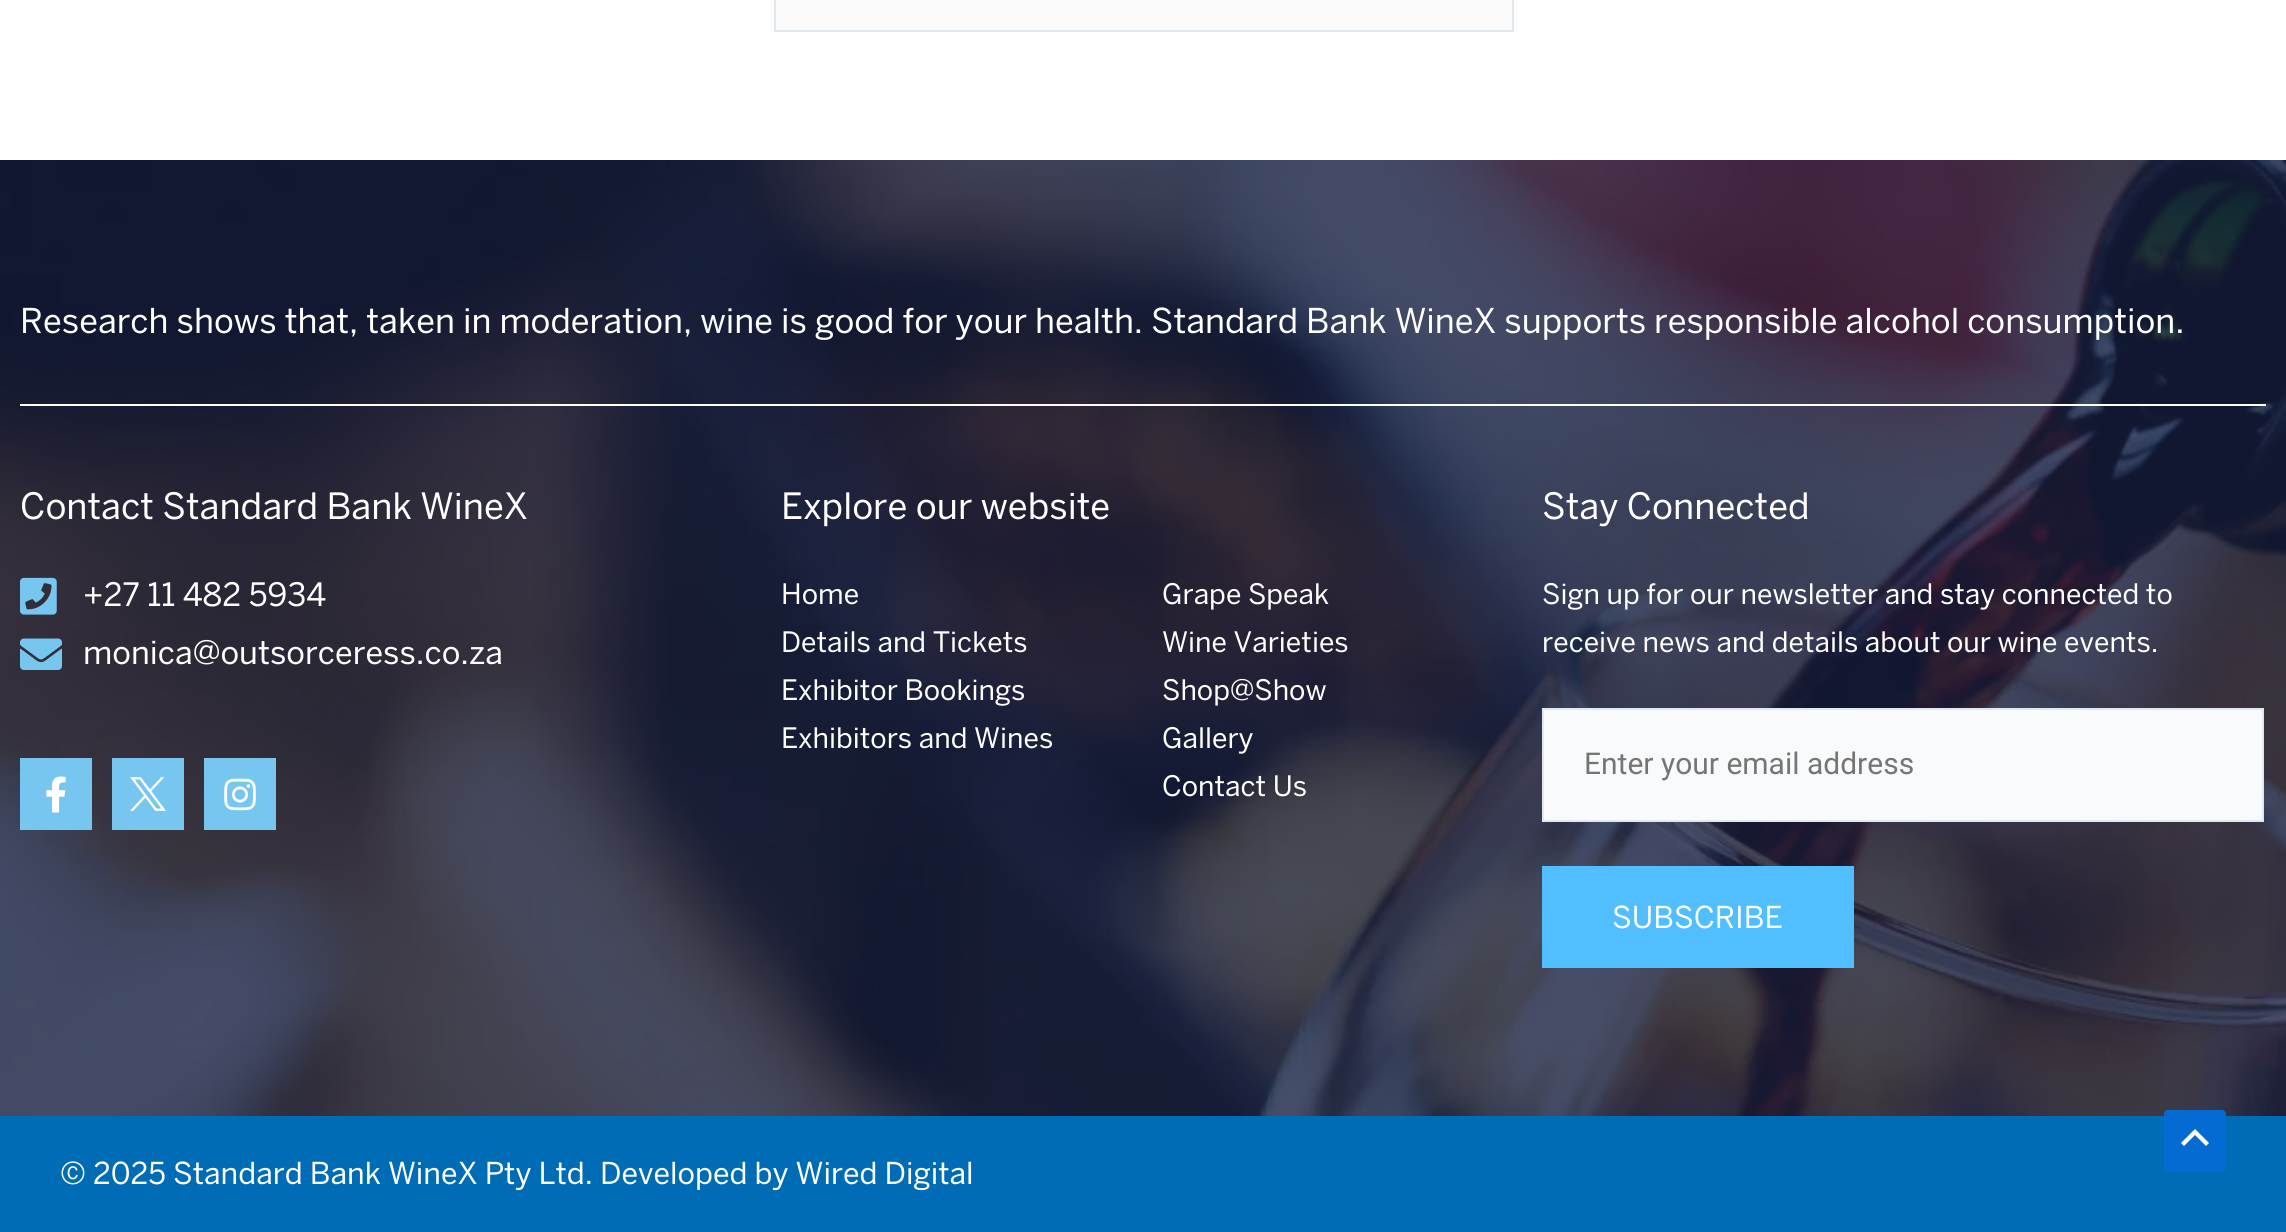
#include <cairo/cairo.h>
#include <math.h>
#include <stddef.h>


static void rounded_rect(cairo_t *cr, double x, double y, double w, double h, double r) {
  cairo_new_sub_path(cr);
  cairo_arc(cr, x + w - r, y + h - r, r, 0, M_PI / 2);
  cairo_arc(cr, x + r, y + h - r, r, M_PI / 2, M_PI);
  cairo_arc(cr, x + r, y + r, r, M_PI, 1.5 * M_PI);
  cairo_arc(cr, x + w - r, y + r, r, 1.5 * M_PI, 2 * M_PI);
  cairo_close_path(cr);
}

static void draw_image(cairo_t *cr, const char *path, double x, double y, double w, double h) {
  cairo_surface_t *image = cairo_image_surface_create_from_png(path);
  cairo_save(cr);
  cairo_set_source_surface(cr, image, x, y);
  cairo_rectangle(cr, x, y, w, h);
  cairo_fill(cr);
  cairo_restore(cr);
  cairo_surface_destroy(image);
}

static void draw(cairo_t *cr) {
  cairo_set_source_rgb(cr, 1, 1, 1);
  cairo_paint(cr);
  cairo_set_source_rgb(cr, 250 / 255.0, 250 / 255.0, 250 / 255.0);
  cairo_rectangle(cr, 775, -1, 738, 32);
  cairo_fill_preserve(cr);
  cairo_set_source_rgb(cr, 226 / 255.0, 232 / 255.0, 240 / 255.0);
  cairo_stroke(cr);
  cairo_set_source_rgb(cr, 22 / 255.0, 29 / 255.0, 62 / 255.0);
  cairo_rectangle(cr, 0, 160, 2286, 956);
  cairo_fill(cr);
  draw_image(cr, "images/1.png", 0, 160, 2286, 956);
  cairo_set_source_rgb(cr, 1, 1, 1);
  cairo_rectangle(cr, 20, 404, 2246, 2);
  cairo_fill(cr);
  draw_image(cr, "images/2.png", 20, 577, 37, 38);
  draw_image(cr, "images/3.png", 20, 638, 42, 32);
  cairo_set_source_rgb(cr, 118 / 255.0, 198 / 255.0, 239 / 255.0);
  cairo_rectangle(cr, 20, 758, 72, 72);
  cairo_fill(cr);
  draw_image(cr, "images/4.png", 46, 776, 20, 37);
  cairo_rectangle(cr, 112, 758, 72, 72);
  cairo_fill(cr);
  draw_image(cr, "images/5.png", 130, 777, 36, 34);
  cairo_rectangle(cr, 204, 758, 72, 72);
  cairo_fill(cr);
  draw_image(cr, "images/6.png", 224, 778, 32, 33);
  cairo_set_source_rgb(cr, 249 / 255.0, 250 / 255.0, 251 / 255.0);
  cairo_rectangle(cr, 1543, 709, 720, 112);
  cairo_fill_preserve(cr);
  cairo_set_source_rgb(cr, 226 / 255.0, 232 / 255.0, 240 / 255.0);
  cairo_stroke(cr);
  cairo_set_source_rgb(cr, 80 / 255.0, 190 / 255.0, 1);
  cairo_rectangle(cr, 1542, 866, 312, 102);
  cairo_fill(cr);
  cairo_set_source_rgb(cr, 0, 108 / 255.0, 181 / 255.0);
  cairo_rectangle(cr, 0, 1116, 2286, 116);
  cairo_fill(cr);
  cairo_set_source_rgb(cr, 4 / 255.0, 107 / 255.0, 210 / 255.0);
  rounded_rect(cr, 2164, 1110, 62, 62, 4);
  cairo_fill(cr);
  cairo_set_source_rgb(cr, 1, 1, 1);
  cairo_new_path(cr);
  cairo_move_to(cr, 2209, 1143);
  cairo_line_to(cr, 2195, 1129);
  cairo_line_to(cr, 2181, 1143);
  cairo_line_to(cr, 2184, 1146);
  cairo_line_to(cr, 2195, 1135);
  cairo_line_to(cr, 2206, 1146);
  cairo_close_path(cr);
  cairo_fill(cr);
  cairo_select_font_face(cr, "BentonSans", CAIRO_FONT_SLANT_NORMAL, CAIRO_FONT_WEIGHT_NORMAL);
  cairo_set_font_size(cr, 34);
  cairo_move_to(cr, 20, 333);
  cairo_show_text(cr, "Research shows that, taken in moderation, wine is good for your health. Standard Bank WineX supports responsible alcohol consumption.");
  cairo_set_font_size(cr, 36);
  cairo_move_to(cr, 20, 519);
  cairo_show_text(cr, "Contact Standard Bank WineX");
  cairo_set_font_size(cr, 32);
  cairo_move_to(cr, 83, 606);
  cairo_show_text(cr, "+27 11 482 5934");
  cairo_move_to(cr, 83, 664);
  cairo_show_text(cr, "monica@outsorceress.co.za");
  cairo_set_font_size(cr, 36);
  cairo_move_to(cr, 781, 519);
  cairo_show_text(cr, "Explore our website");
  cairo_set_font_size(cr, 28);
  cairo_move_to(cr, 781, 604);
  cairo_show_text(cr, "Home");
  cairo_move_to(cr, 781, 652);
  cairo_show_text(cr, "Details and Tickets");
  cairo_move_to(cr, 781, 700);
  cairo_show_text(cr, "Exhibitor Bookings");
  cairo_move_to(cr, 781, 748);
  cairo_show_text(cr, "Exhibitors and Wines");
  cairo_move_to(cr, 1162, 604);
  cairo_show_text(cr, "Grape Speak");
  cairo_move_to(cr, 1162, 652);
  cairo_show_text(cr, "Wine Varieties");
  cairo_move_to(cr, 1162, 700);
  cairo_show_text(cr, "Shop@Show");
  cairo_move_to(cr, 1162, 748);
  cairo_show_text(cr, "Gallery");
  cairo_move_to(cr, 1162, 796);
  cairo_show_text(cr, "Contact Us");
  cairo_set_font_size(cr, 36);
  cairo_move_to(cr, 1542, 519);
  cairo_show_text(cr, "Stay Connected");
  cairo_set_font_size(cr, 28);
  cairo_move_to(cr, 1542, 604);
  cairo_show_text(cr, "Sign up for our newsletter and stay connected to");
  cairo_move_to(cr, 1542, 652);
  cairo_show_text(cr, "receive news and details about our wine events.");
  cairo_select_font_face(cr, "Roboto", CAIRO_FONT_SLANT_NORMAL, CAIRO_FONT_WEIGHT_NORMAL);
  cairo_set_font_size(cr, 30);
  cairo_set_source_rgb(cr, 117 / 255.0, 117 / 255.0, 117 / 255.0);
  cairo_move_to(cr, 1584, 774);
  cairo_show_text(cr, "Enter your email address");
  cairo_select_font_face(cr, "BentonSans", CAIRO_FONT_SLANT_NORMAL, CAIRO_FONT_WEIGHT_NORMAL);
  cairo_set_source_rgb(cr, 1, 1, 1);
  cairo_move_to(cr, 1612, 928);
  cairo_show_text(cr, "SUBSCRIBE");
  cairo_move_to(cr, 60, 1184);
  cairo_show_text(cr, "© 2025 Standard Bank WineX Pty Ltd. Developed by Wired Digital");
}

int main(void) {
  cairo_surface_t *surface = cairo_image_surface_create(CAIRO_FORMAT_RGB24, 2286, 1232);
  cairo_t *cr = cairo_create(surface);
  cairo_font_options_t *options = cairo_font_options_create();
  cairo_font_options_set_hint_metrics(options, CAIRO_HINT_METRICS_OFF);
  cairo_font_options_set_hint_style(options, CAIRO_HINT_STYLE_NONE);
  cairo_set_font_options(cr, options);
  cairo_set_miter_limit(cr, 4);
  draw(cr);
  cairo_surface_write_to_png(surface, "out.png");
  cairo_font_options_destroy(options);
  cairo_destroy(cr);
  cairo_surface_destroy(surface);
  return 0;
}
